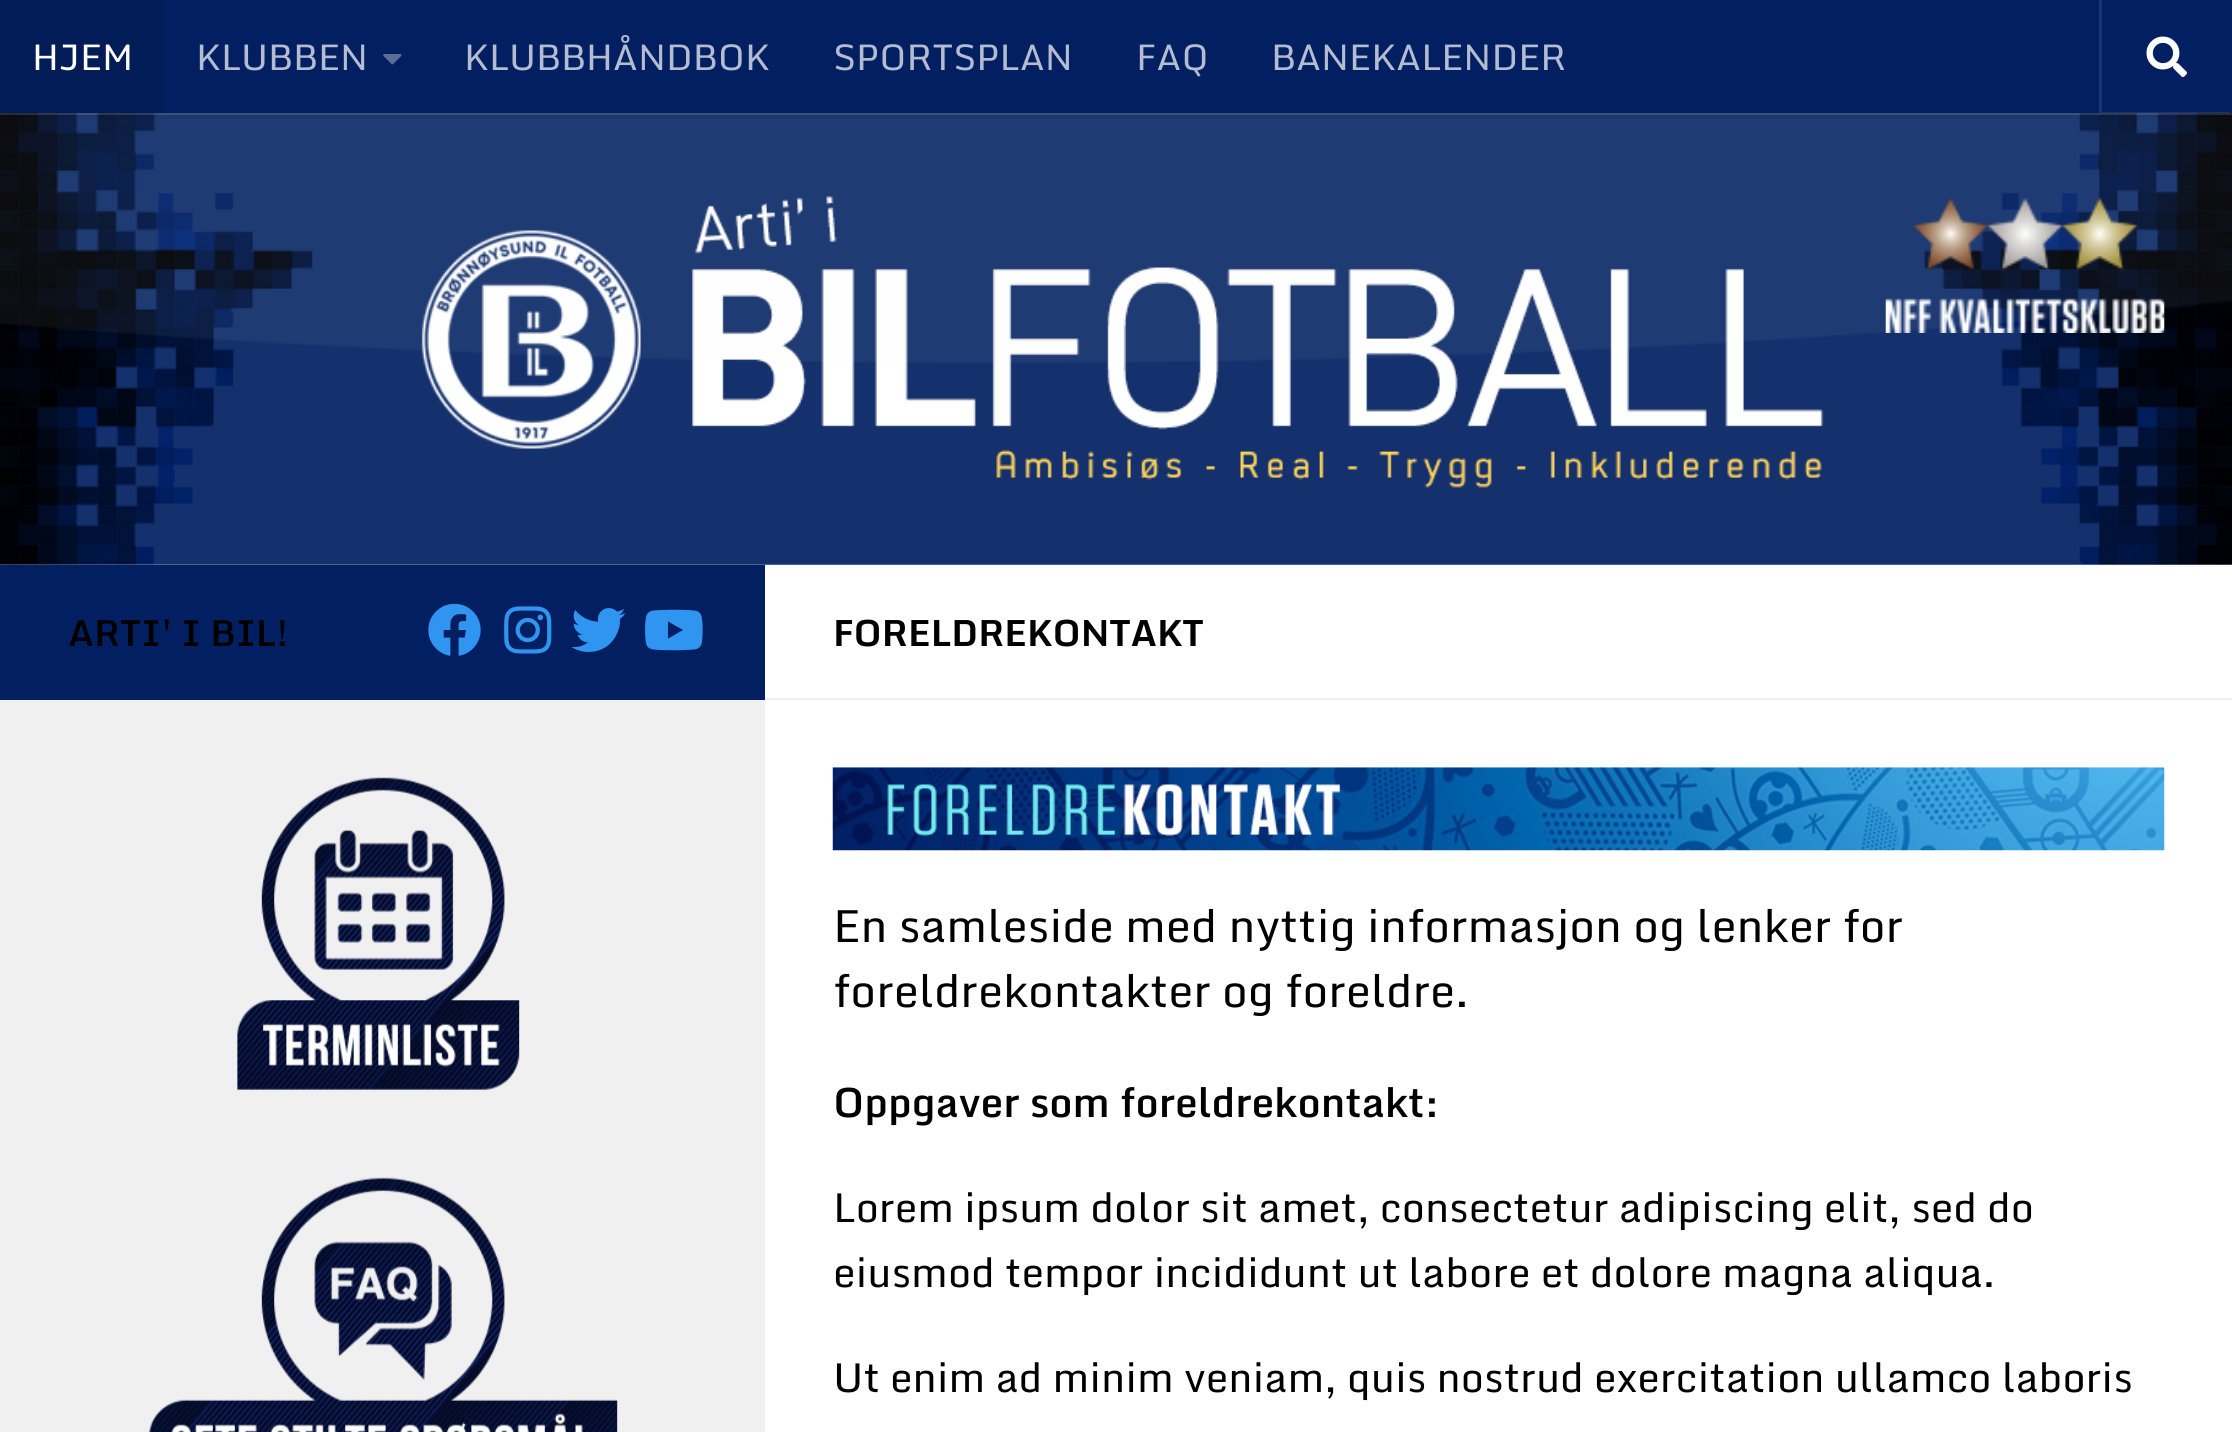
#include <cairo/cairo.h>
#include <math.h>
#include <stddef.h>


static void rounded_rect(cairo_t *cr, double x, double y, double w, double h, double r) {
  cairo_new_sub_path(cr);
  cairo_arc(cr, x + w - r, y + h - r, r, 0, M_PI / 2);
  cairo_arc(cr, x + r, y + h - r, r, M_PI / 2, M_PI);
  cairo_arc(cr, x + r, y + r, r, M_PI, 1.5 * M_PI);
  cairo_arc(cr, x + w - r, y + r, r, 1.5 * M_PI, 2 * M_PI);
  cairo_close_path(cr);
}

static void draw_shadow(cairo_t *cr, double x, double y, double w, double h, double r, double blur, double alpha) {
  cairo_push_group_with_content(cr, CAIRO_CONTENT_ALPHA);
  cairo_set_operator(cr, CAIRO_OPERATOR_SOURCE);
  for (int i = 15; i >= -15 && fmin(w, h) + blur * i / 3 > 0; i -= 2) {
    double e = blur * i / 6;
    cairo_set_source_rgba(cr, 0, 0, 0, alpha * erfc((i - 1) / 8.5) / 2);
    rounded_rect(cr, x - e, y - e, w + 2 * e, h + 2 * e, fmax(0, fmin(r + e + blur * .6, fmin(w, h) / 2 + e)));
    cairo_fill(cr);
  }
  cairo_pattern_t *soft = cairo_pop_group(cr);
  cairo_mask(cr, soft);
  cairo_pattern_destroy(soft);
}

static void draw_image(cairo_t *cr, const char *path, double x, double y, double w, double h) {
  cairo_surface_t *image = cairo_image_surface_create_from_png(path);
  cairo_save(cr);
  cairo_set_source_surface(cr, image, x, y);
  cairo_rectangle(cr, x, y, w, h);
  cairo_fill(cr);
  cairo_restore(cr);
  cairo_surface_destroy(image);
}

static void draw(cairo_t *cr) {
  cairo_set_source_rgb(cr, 1, 1, 1);
  cairo_paint(cr);
  draw_image(cr, "images/3.png", 0, 113, 2232, 452);
  cairo_set_source_rgba(cr, 1, 1, 1, 0.15);
  cairo_rectangle(cr, 0, 113, 2232, 2);
  cairo_fill(cr);
  cairo_set_source_rgb(cr, 0, 0, 0);
  draw_shadow(cr, 0, 0, 2232, 113, 0, 5.5, 0.2);
  cairo_set_source_rgb(cr, 2 / 255.0, 31 / 255.0, 97 / 255.0);
  cairo_rectangle(cr, 164, 0, 2068, 113);
  cairo_fill(cr);
  cairo_set_source_rgb(cr, 2 / 255.0, 28 / 255.0, 87 / 255.0);
  cairo_rectangle(cr, 0, 0, 164, 113);
  cairo_fill(cr);
  draw_image(cr, "images/1.png", 383, 54, 19, 11);
  cairo_set_source_rgb(cr, 27 / 255.0, 53 / 255.0, 113 / 255.0);
  cairo_new_path(cr);
  cairo_move_to(cr, 2099, 0);
  cairo_line_to(cr, 2099, 113);
  cairo_line_to(cr, 2230, 113);
  cairo_line_to(cr, 2230, 112);
  cairo_line_to(cr, 2102, 112);
  cairo_line_to(cr, 2102, 0);
  cairo_close_path(cr);
  cairo_fill(cr);
  draw_image(cr, "images/2.png", 2146, 36, 41, 41);
  draw_image(cr, "images/4.png", 1885, 198, 280, 135);
  cairo_set_source_rgb(cr, 2 / 255.0, 31 / 255.0, 97 / 255.0);
  cairo_rectangle(cr, 0, 565, 765, 135);
  cairo_fill(cr);
  draw_image(cr, "images/5.png", 428, 603, 53, 53);
  draw_image(cr, "images/6.png", 504, 606, 48, 48);
  draw_image(cr, "images/7.png", 571, 608, 55, 44);
  draw_image(cr, "images/8.png", 645, 609, 58, 42);
  cairo_set_source_rgb(cr, 240 / 255.0, 240 / 255.0, 240 / 255.0);
  cairo_rectangle(cr, 0, 700, 765, 732);
  cairo_fill(cr);
  draw_image(cr, "images/9.png", 237, 777, 283, 313);
  draw_image(cr, "images/10.png", 149, 1177, 469, 255);
  cairo_set_source_rgb(cr, 238 / 255.0, 238 / 255.0, 238 / 255.0);
  cairo_rectangle(cr, 765, 698, 1467, 2);
  cairo_fill(cr);
  draw_image(cr, "images/11.png", 832, 767, 1333, 84);
  cairo_select_font_face(cr, "Monda", CAIRO_FONT_SLANT_NORMAL, CAIRO_FONT_WEIGHT_NORMAL);
  cairo_set_font_size(cr, 36);
  cairo_set_source_rgb(cr, 1, 1, 1);
  cairo_move_to(cr, 32, 70);
  cairo_show_text(cr, "HJEM");
  cairo_set_source_rgb(cr, 179 / 255.0, 188 / 255.0, 208 / 255.0);
  cairo_move_to(cr, 196, 70);
  cairo_show_text(cr, "KLUBBEN");
  cairo_move_to(cr, 464, 70);
  cairo_show_text(cr, "KLUBBHÅNDBOK");
  cairo_move_to(cr, 833, 70);
  cairo_show_text(cr, "SPORTSPLAN");
  cairo_move_to(cr, 1136, 70);
  cairo_show_text(cr, "FAQ");
  cairo_move_to(cr, 1271, 70);
  cairo_show_text(cr, "BANEKALENDER");
  cairo_select_font_face(cr, "Monda SemiBold", CAIRO_FONT_SLANT_NORMAL, CAIRO_FONT_WEIGHT_NORMAL);
  cairo_set_source_rgb(cr, 0, 0, 0);
  cairo_move_to(cr, 68, 646);
  cairo_show_text(cr, "ARTI' I BIL!");
  cairo_select_font_face(cr, "Monda", CAIRO_FONT_SLANT_NORMAL, CAIRO_FONT_WEIGHT_BOLD);
  cairo_move_to(cr, 833, 646);
  cairo_show_text(cr, "FORELDREKONTAKT");
  cairo_select_font_face(cr, "Monda", CAIRO_FONT_SLANT_NORMAL, CAIRO_FONT_WEIGHT_NORMAL);
  cairo_set_font_size(cr, 45);
  cairo_move_to(cr, 833, 942);
  cairo_show_text(cr, "En samleside med nyttig informasjon og lenker for");
  cairo_move_to(cr, 833, 1007);
  cairo_show_text(cr, "foreldrekontakter og foreldre.");
  cairo_select_font_face(cr, "Monda SemiBold", CAIRO_FONT_SLANT_NORMAL, CAIRO_FONT_WEIGHT_NORMAL);
  cairo_set_font_size(cr, 40.5);
  cairo_move_to(cr, 833, 1117);
  cairo_show_text(cr, "Oppgaver som foreldrekontakt:");
  cairo_select_font_face(cr, "Monda", CAIRO_FONT_SLANT_NORMAL, CAIRO_FONT_WEIGHT_NORMAL);
  cairo_move_to(cr, 833, 1222);
  cairo_show_text(cr, "Lorem ipsum dolor sit amet, consectetur adipiscing elit, sed do");
  cairo_move_to(cr, 833, 1287);
  cairo_show_text(cr, "eiusmod tempor incididunt ut labore et dolore magna aliqua.");
  cairo_move_to(cr, 833, 1392);
  cairo_show_text(cr, "Ut enim ad minim veniam, quis nostrud exercitation ullamco laboris");
}

int main(void) {
  cairo_surface_t *surface = cairo_image_surface_create(CAIRO_FORMAT_RGB24, 2232, 1432);
  cairo_t *cr = cairo_create(surface);
  cairo_font_options_t *options = cairo_font_options_create();
  cairo_font_options_set_hint_metrics(options, CAIRO_HINT_METRICS_OFF);
  cairo_font_options_set_hint_style(options, CAIRO_HINT_STYLE_NONE);
  cairo_set_font_options(cr, options);
  cairo_set_miter_limit(cr, 4);
  draw(cr);
  cairo_surface_write_to_png(surface, "out.png");
  cairo_font_options_destroy(options);
  cairo_destroy(cr);
  cairo_surface_destroy(surface);
  return 0;
}
